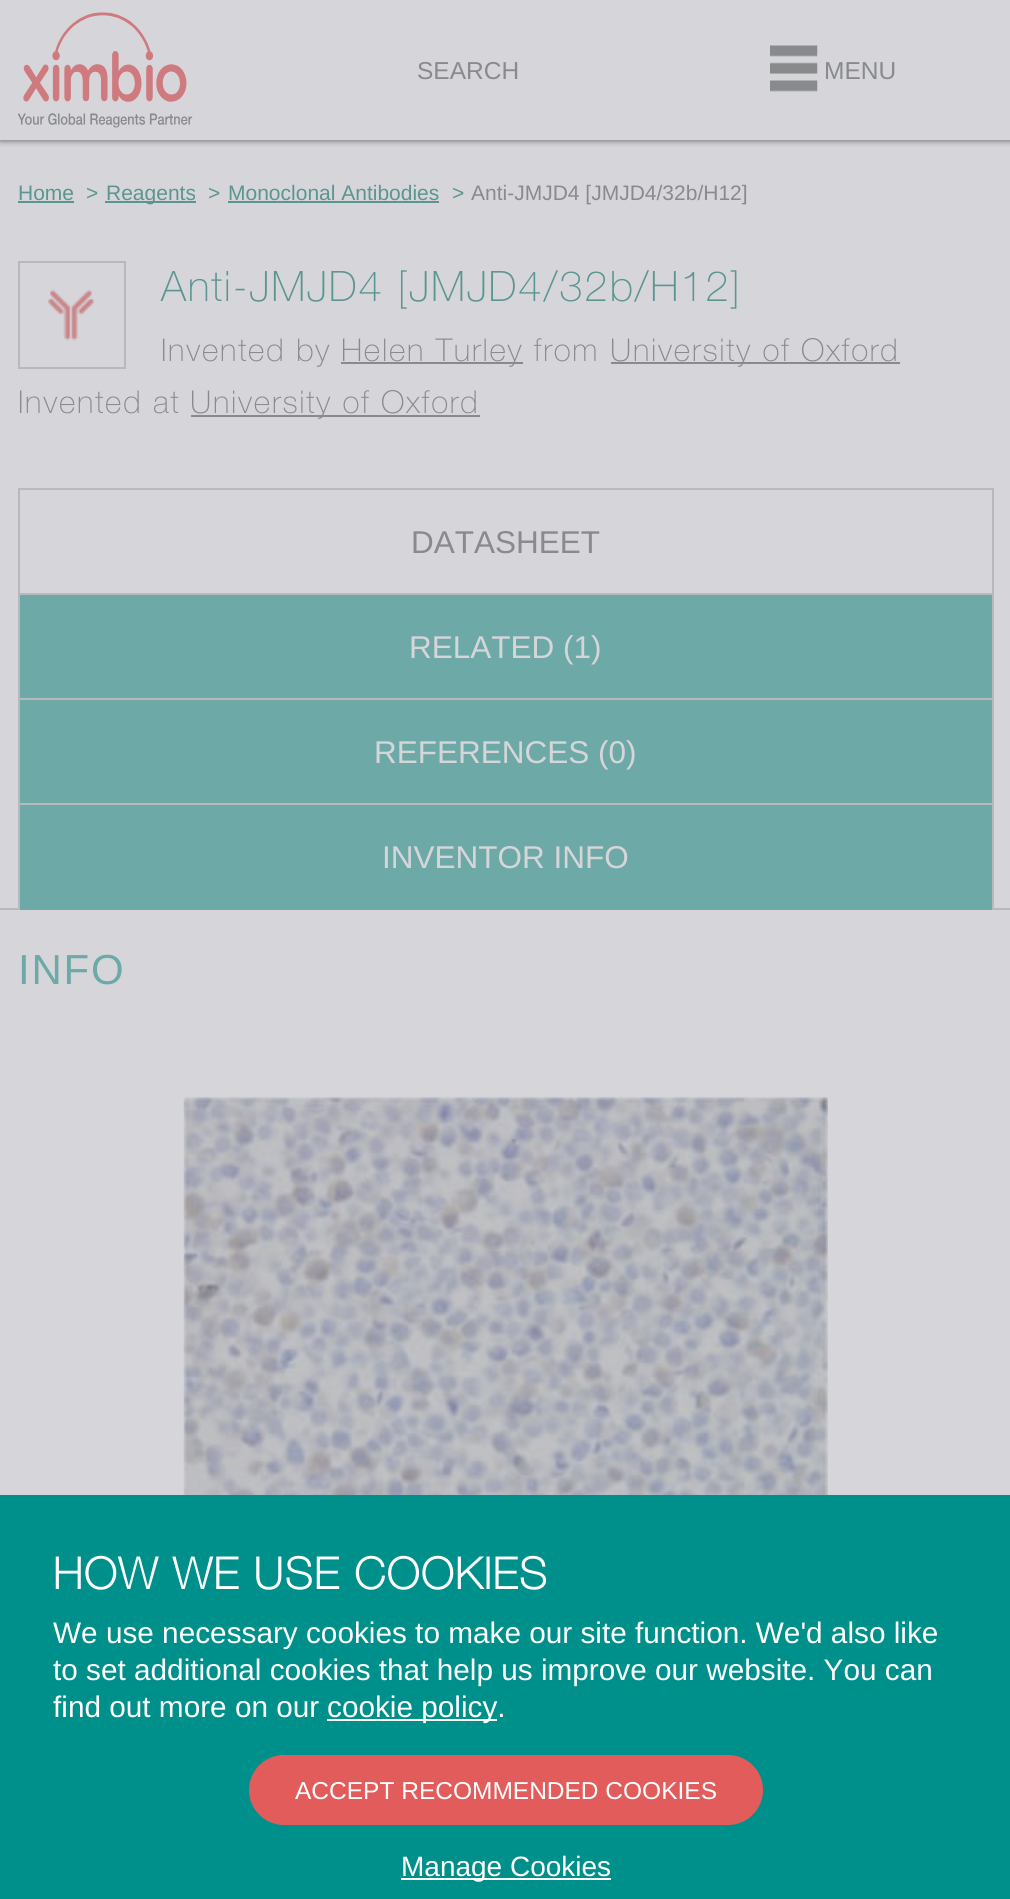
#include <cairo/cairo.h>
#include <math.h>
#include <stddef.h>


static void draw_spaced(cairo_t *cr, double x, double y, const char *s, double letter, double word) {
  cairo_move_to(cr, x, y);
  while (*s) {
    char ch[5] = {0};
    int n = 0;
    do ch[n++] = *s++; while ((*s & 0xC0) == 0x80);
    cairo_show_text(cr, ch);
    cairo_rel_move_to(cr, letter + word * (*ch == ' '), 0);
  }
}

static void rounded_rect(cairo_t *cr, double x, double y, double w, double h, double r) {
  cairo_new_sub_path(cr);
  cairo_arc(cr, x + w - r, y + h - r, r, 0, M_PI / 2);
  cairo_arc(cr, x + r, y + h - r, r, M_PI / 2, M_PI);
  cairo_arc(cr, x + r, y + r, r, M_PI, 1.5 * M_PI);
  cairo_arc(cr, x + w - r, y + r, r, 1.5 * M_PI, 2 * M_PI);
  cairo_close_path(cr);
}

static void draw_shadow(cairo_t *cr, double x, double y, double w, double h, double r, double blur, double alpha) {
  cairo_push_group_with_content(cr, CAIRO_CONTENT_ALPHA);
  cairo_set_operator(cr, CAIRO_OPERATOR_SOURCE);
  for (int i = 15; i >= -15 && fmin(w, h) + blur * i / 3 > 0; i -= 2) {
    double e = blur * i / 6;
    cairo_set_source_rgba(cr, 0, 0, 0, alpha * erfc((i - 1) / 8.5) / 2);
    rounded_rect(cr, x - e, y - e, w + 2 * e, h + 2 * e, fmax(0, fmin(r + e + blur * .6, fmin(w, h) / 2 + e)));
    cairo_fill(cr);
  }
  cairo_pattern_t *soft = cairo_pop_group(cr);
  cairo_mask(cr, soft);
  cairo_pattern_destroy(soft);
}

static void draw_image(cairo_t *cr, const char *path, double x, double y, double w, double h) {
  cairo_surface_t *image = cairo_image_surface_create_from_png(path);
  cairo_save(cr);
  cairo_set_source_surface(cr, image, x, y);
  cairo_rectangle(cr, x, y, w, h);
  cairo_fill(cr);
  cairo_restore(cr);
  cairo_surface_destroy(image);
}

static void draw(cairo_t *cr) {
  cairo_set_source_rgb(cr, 214 / 255.0, 214 / 255.0, 218 / 255.0);
  cairo_paint(cr);
  cairo_save(cr);
  cairo_rectangle(cr, 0, 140, 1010, 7);
  cairo_clip(cr);
  cairo_set_source_rgb(cr, 86 / 255.0, 87 / 255.0, 91 / 255.0);
  draw_shadow(cr, 0, 0, 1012, 140, 0, 3.5, 1);
  cairo_restore(cr);
  draw_image(cr, "images/1.png", 18, 12, 175, 116);
  draw_image(cr, "images/2.png", 770, 45, 48, 47);
  cairo_set_source_rgb(cr, 91 / 255.0, 149 / 255.0, 145 / 255.0);
  cairo_rectangle(cr, 18, 201, 56, 2);
  cairo_fill(cr);
  cairo_rectangle(cr, 105, 201, 91, 2);
  cairo_fill(cr);
  cairo_rectangle(cr, 228, 201, 211, 2);
  cairo_fill(cr);
  cairo_rectangle(cr, 19, 262, 106, 106);
  cairo_set_source_rgb(cr, 184 / 255.0, 185 / 255.0, 189 / 255.0);
  cairo_stroke(cr);
  draw_image(cr, "images/3.png", 48, 289, 46, 52);
  cairo_set_source_rgb(cr, 136 / 255.0, 138 / 255.0, 141 / 255.0);
  cairo_rectangle(cr, 341, 362, 182, 2);
  cairo_fill(cr);
  cairo_rectangle(cr, 611, 362, 289, 2);
  cairo_fill(cr);
  cairo_rectangle(cr, 191, 415, 289, 2);
  cairo_fill(cr);
  cairo_set_source_rgb(cr, 184 / 255.0, 185 / 255.0, 189 / 255.0);
  cairo_rectangle(cr, 0, 908, 1010, 2);
  cairo_fill(cr);
  cairo_rectangle(cr, 18, 488, 976, 2);
  cairo_fill(cr);
  cairo_rectangle(cr, 992, 488, 2, 107);
  cairo_fill(cr);
  cairo_rectangle(cr, 18, 488, 2, 107);
  cairo_fill(cr);
  cairo_set_source_rgb(cr, 109 / 255.0, 169 / 255.0, 167 / 255.0);
  cairo_rectangle(cr, 20, 595, 972, 103);
  cairo_fill(cr);
  cairo_set_source_rgb(cr, 184 / 255.0, 185 / 255.0, 189 / 255.0);
  cairo_rectangle(cr, 18, 593, 976, 2);
  cairo_fill(cr);
  cairo_rectangle(cr, 992, 593, 2, 107);
  cairo_fill(cr);
  cairo_rectangle(cr, 18, 593, 2, 107);
  cairo_fill(cr);
  cairo_set_source_rgb(cr, 109 / 255.0, 169 / 255.0, 167 / 255.0);
  cairo_rectangle(cr, 20, 700, 972, 103);
  cairo_fill(cr);
  cairo_set_source_rgb(cr, 184 / 255.0, 185 / 255.0, 189 / 255.0);
  cairo_rectangle(cr, 18, 698, 976, 2);
  cairo_fill(cr);
  cairo_rectangle(cr, 992, 698, 2, 107);
  cairo_fill(cr);
  cairo_rectangle(cr, 18, 698, 2, 107);
  cairo_fill(cr);
  cairo_set_source_rgb(cr, 109 / 255.0, 169 / 255.0, 167 / 255.0);
  cairo_rectangle(cr, 20, 805, 972, 105);
  cairo_fill(cr);
  cairo_set_source_rgb(cr, 184 / 255.0, 185 / 255.0, 189 / 255.0);
  cairo_rectangle(cr, 18, 803, 976, 2);
  cairo_fill(cr);
  cairo_rectangle(cr, 992, 803, 2, 107);
  cairo_fill(cr);
  cairo_rectangle(cr, 18, 803, 2, 107);
  cairo_fill(cr);
  draw_image(cr, "images/4.png", 183, 1096, 645, 399);
  cairo_set_source_rgb(cr, 0, 144 / 255.0, 139 / 255.0);
  cairo_rectangle(cr, 0, 1495, 1010, 404);
  cairo_fill(cr);
  cairo_set_source_rgb(cr, 1, 1, 1);
  cairo_rectangle(cr, 327, 1719, 170, 2);
  cairo_fill(cr);
  cairo_set_source_rgb(cr, 227 / 255.0, 92 / 255.0, 92 / 255.0);
  rounded_rect(cr, 249, 1755, 514, 70, 35);
  cairo_fill(cr);
  cairo_set_source_rgb(cr, 1, 1, 1);
  cairo_rectangle(cr, 401, 1878, 210, 2);
  cairo_fill(cr);
  cairo_select_font_face(cr, "Liberation Sans", CAIRO_FONT_SLANT_NORMAL, CAIRO_FONT_WEIGHT_NORMAL);
  cairo_set_font_size(cr, 24.5);
  cairo_set_source_rgb(cr, 136 / 255.0, 138 / 255.0, 141 / 255.0);
  cairo_move_to(cr, 417, 79);
  cairo_show_text(cr, "SEARCH");
  cairo_move_to(cr, 824, 79);
  cairo_show_text(cr, "MENU");
  cairo_set_font_size(cr, 21);
  cairo_set_source_rgb(cr, 91 / 255.0, 149 / 255.0, 145 / 255.0);
  cairo_move_to(cr, 18, 200);
  cairo_show_text(cr, "Home");
  cairo_move_to(cr, 86, 200);
  cairo_show_text(cr, ">");
  cairo_move_to(cr, 106, 200);
  cairo_show_text(cr, "Reagents");
  cairo_move_to(cr, 208, 200);
  cairo_show_text(cr, ">");
  cairo_move_to(cr, 228, 200);
  cairo_show_text(cr, "Monoclonal Antibodies");
  cairo_move_to(cr, 452, 200);
  cairo_show_text(cr, ">");
  cairo_set_source_rgb(cr, 136 / 255.0, 138 / 255.0, 141 / 255.0);
  cairo_move_to(cr, 471, 200);
  cairo_show_text(cr, "Anti-JMJD4 [JMJD4/32b/H12]");
  cairo_select_font_face(cr, "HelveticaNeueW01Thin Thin", CAIRO_FONT_SLANT_NORMAL, CAIRO_FONT_WEIGHT_NORMAL);
  cairo_set_font_size(cr, 42);
  cairo_set_source_rgb(cr, 91 / 255.0, 149 / 255.0, 145 / 255.0);
  draw_spaced(cr, 161, 301, "Anti-JMJD4 [JMJD4/32b/H12]", 1.75, 0);
  cairo_set_font_size(cr, 31.5);
  cairo_set_source_rgb(cr, 136 / 255.0, 138 / 255.0, 141 / 255.0);
  draw_spaced(cr, 161, 361, "Invented by", 1.75, 0);
  draw_spaced(cr, 341, 361, "Helen Turley from", 1.75, 0);
  draw_spaced(cr, 610, 361, "University of Oxford", 1.75, 0);
  draw_spaced(cr, 18, 413, "Invented at", 1.75, 0);
  draw_spaced(cr, 190, 413, "University of Oxford", 1.75, 0);
  cairo_select_font_face(cr, "Liberation Sans", CAIRO_FONT_SLANT_NORMAL, CAIRO_FONT_WEIGHT_NORMAL);
  cairo_move_to(cr, 411, 553);
  cairo_show_text(cr, "DATASHEET");
  cairo_set_source_rgb(cr, 214 / 255.0, 214 / 255.0, 218 / 255.0);
  cairo_move_to(cr, 409, 658);
  cairo_show_text(cr, "RELATED (1)");
  cairo_move_to(cr, 374, 763);
  cairo_show_text(cr, "REFERENCES (0)");
  cairo_move_to(cr, 382, 868);
  cairo_show_text(cr, "INVENTOR INFO");
  cairo_set_font_size(cr, 42);
  cairo_set_source_rgb(cr, 109 / 255.0, 169 / 255.0, 167 / 255.0);
  draw_spaced(cr, 18, 984, "INFO", 1.75, 0);
  cairo_select_font_face(cr, "HelveticaNeueW01Thin", CAIRO_FONT_SLANT_NORMAL, CAIRO_FONT_WEIGHT_BOLD);
  cairo_set_font_size(cr, 43.75);
  cairo_set_source_rgb(cr, 1, 1, 1);
  draw_spaced(cr, 53, 1589, "HOW WE USE COOKIES", 1.75, 0);
  cairo_select_font_face(cr, "Liberation Sans", CAIRO_FONT_SLANT_NORMAL, CAIRO_FONT_WEIGHT_NORMAL);
  cairo_set_font_size(cr, 29.75);
  cairo_move_to(cr, 53, 1643);
  cairo_show_text(cr, "We use necessary cookies to make our site function. We'd also like");
  cairo_move_to(cr, 53, 1680);
  cairo_show_text(cr, "to set additional cookies that help us improve our website. You can");
  cairo_move_to(cr, 53, 1717);
  cairo_show_text(cr, "find out more on our");
  cairo_move_to(cr, 327, 1717);
  cairo_show_text(cr, "cookie policy.");
  cairo_set_font_size(cr, 24.5);
  cairo_move_to(cr, 295, 1799);
  cairo_show_text(cr, "ACCEPT RECOMMENDED COOKIES");
  cairo_set_font_size(cr, 28);
  cairo_move_to(cr, 401, 1876);
  cairo_show_text(cr, "Manage Cookies");
}

int main(void) {
  cairo_surface_t *surface = cairo_image_surface_create(CAIRO_FORMAT_RGB24, 1010, 1899);
  cairo_t *cr = cairo_create(surface);
  cairo_font_options_t *options = cairo_font_options_create();
  cairo_font_options_set_hint_metrics(options, CAIRO_HINT_METRICS_OFF);
  cairo_font_options_set_hint_style(options, CAIRO_HINT_STYLE_NONE);
  cairo_set_font_options(cr, options);
  cairo_set_miter_limit(cr, 4);
  draw(cr);
  cairo_surface_write_to_png(surface, "out.png");
  cairo_font_options_destroy(options);
  cairo_destroy(cr);
  cairo_surface_destroy(surface);
  return 0;
}
